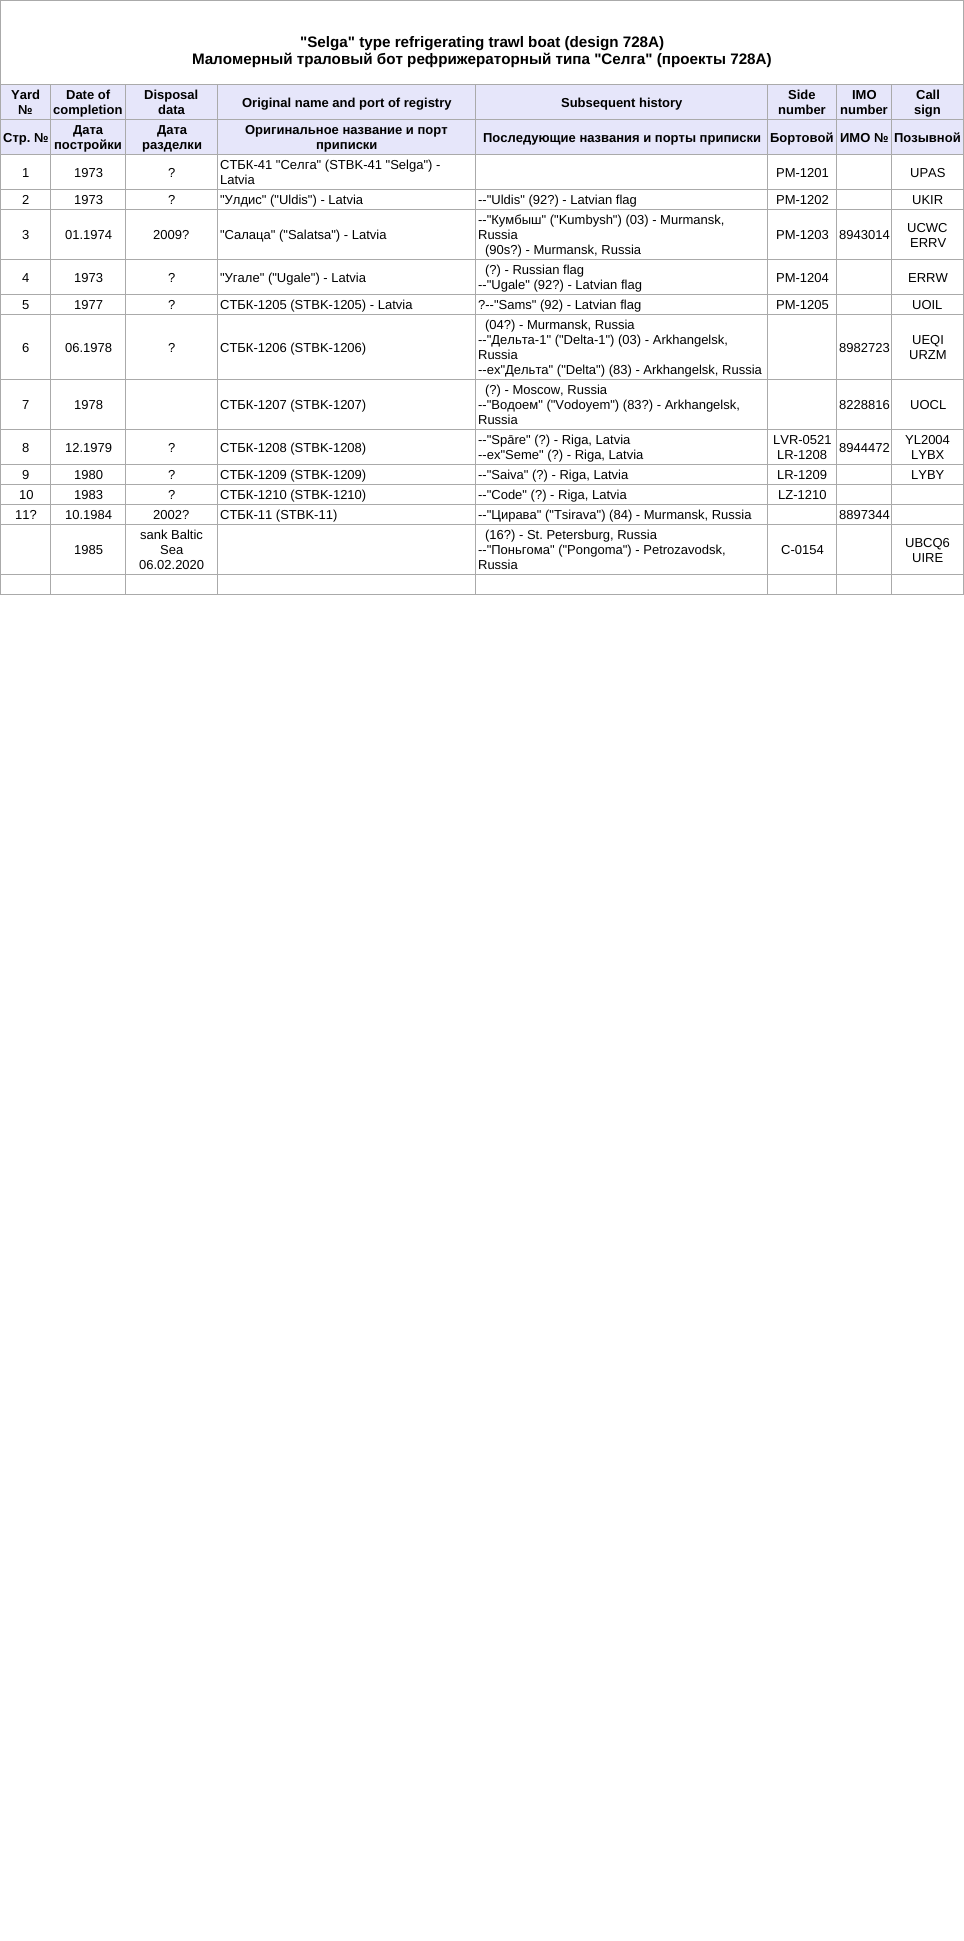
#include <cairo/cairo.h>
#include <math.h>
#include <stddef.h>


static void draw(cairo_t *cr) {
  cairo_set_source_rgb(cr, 1, 1, 1);
  cairo_paint(cr);
  cairo_set_source_rgb(cr, 170 / 255.0, 170 / 255.0, 170 / 255.0);
  cairo_rectangle(cr, 0, 0, 964, 1);
  cairo_fill(cr);
  cairo_rectangle(cr, 963, 0, 1, 595);
  cairo_fill(cr);
  cairo_rectangle(cr, 0, 594, 964, 1);
  cairo_fill(cr);
  cairo_rectangle(cr, 0, 0, 1, 595);
  cairo_fill(cr);
  cairo_set_source_rgb(cr, 230 / 255.0, 230 / 255.0, 250 / 255.0);
  cairo_rectangle(cr, 1, 85, 49, 34);
  cairo_fill(cr);
  cairo_set_source_rgb(cr, 170 / 255.0, 170 / 255.0, 170 / 255.0);
  cairo_rectangle(cr, 891, 84, 73, 1);
  cairo_fill(cr);
  cairo_rectangle(cr, 891, 119, 73, 1);
  cairo_fill(cr);
  cairo_rectangle(cr, 891, 154, 73, 1);
  cairo_fill(cr);
  cairo_rectangle(cr, 891, 189, 73, 1);
  cairo_fill(cr);
  cairo_rectangle(cr, 891, 209, 73, 1);
  cairo_fill(cr);
  cairo_rectangle(cr, 891, 259, 73, 1);
  cairo_fill(cr);
  cairo_rectangle(cr, 891, 294, 73, 1);
  cairo_fill(cr);
  cairo_rectangle(cr, 891, 314, 73, 1);
  cairo_fill(cr);
  cairo_rectangle(cr, 891, 379, 73, 1);
  cairo_fill(cr);
  cairo_rectangle(cr, 891, 429, 73, 1);
  cairo_fill(cr);
  cairo_rectangle(cr, 891, 464, 73, 1);
  cairo_fill(cr);
  cairo_rectangle(cr, 891, 484, 73, 1);
  cairo_fill(cr);
  cairo_rectangle(cr, 891, 504, 73, 1);
  cairo_fill(cr);
  cairo_rectangle(cr, 891, 524, 73, 1);
  cairo_fill(cr);
  cairo_rectangle(cr, 891, 574, 73, 1);
  cairo_fill(cr);
  cairo_rectangle(cr, 891, 574, 1, 21);
  cairo_fill(cr);
  cairo_rectangle(cr, 836, 574, 56, 1);
  cairo_fill(cr);
  cairo_rectangle(cr, 891, 524, 1, 51);
  cairo_fill(cr);
  cairo_rectangle(cr, 836, 524, 56, 1);
  cairo_fill(cr);
  cairo_rectangle(cr, 891, 504, 1, 21);
  cairo_fill(cr);
  cairo_rectangle(cr, 836, 504, 56, 1);
  cairo_fill(cr);
  cairo_rectangle(cr, 891, 484, 1, 21);
  cairo_fill(cr);
  cairo_rectangle(cr, 836, 484, 56, 1);
  cairo_fill(cr);
  cairo_rectangle(cr, 891, 464, 1, 21);
  cairo_fill(cr);
  cairo_rectangle(cr, 836, 464, 56, 1);
  cairo_fill(cr);
  cairo_rectangle(cr, 891, 429, 1, 36);
  cairo_fill(cr);
  cairo_rectangle(cr, 836, 429, 56, 1);
  cairo_fill(cr);
  cairo_rectangle(cr, 891, 379, 1, 51);
  cairo_fill(cr);
  cairo_rectangle(cr, 836, 379, 56, 1);
  cairo_fill(cr);
  cairo_rectangle(cr, 891, 314, 1, 66);
  cairo_fill(cr);
  cairo_rectangle(cr, 836, 314, 56, 1);
  cairo_fill(cr);
  cairo_rectangle(cr, 891, 294, 1, 21);
  cairo_fill(cr);
  cairo_rectangle(cr, 836, 294, 56, 1);
  cairo_fill(cr);
  cairo_rectangle(cr, 891, 259, 1, 36);
  cairo_fill(cr);
  cairo_rectangle(cr, 836, 259, 56, 1);
  cairo_fill(cr);
  cairo_rectangle(cr, 891, 209, 1, 51);
  cairo_fill(cr);
  cairo_rectangle(cr, 836, 209, 56, 1);
  cairo_fill(cr);
  cairo_rectangle(cr, 891, 189, 1, 21);
  cairo_fill(cr);
  cairo_rectangle(cr, 836, 189, 56, 1);
  cairo_fill(cr);
  cairo_rectangle(cr, 891, 154, 1, 36);
  cairo_fill(cr);
  cairo_rectangle(cr, 836, 154, 56, 1);
  cairo_fill(cr);
  cairo_rectangle(cr, 891, 119, 1, 36);
  cairo_fill(cr);
  cairo_rectangle(cr, 836, 119, 56, 1);
  cairo_fill(cr);
  cairo_rectangle(cr, 891, 84, 1, 36);
  cairo_fill(cr);
  cairo_rectangle(cr, 836, 84, 56, 1);
  cairo_fill(cr);
  cairo_rectangle(cr, 836, 574, 1, 21);
  cairo_fill(cr);
  cairo_rectangle(cr, 767, 574, 70, 1);
  cairo_fill(cr);
  cairo_rectangle(cr, 836, 524, 1, 51);
  cairo_fill(cr);
  cairo_rectangle(cr, 767, 524, 70, 1);
  cairo_fill(cr);
  cairo_rectangle(cr, 836, 504, 1, 21);
  cairo_fill(cr);
  cairo_rectangle(cr, 767, 504, 70, 1);
  cairo_fill(cr);
  cairo_rectangle(cr, 836, 484, 1, 21);
  cairo_fill(cr);
  cairo_rectangle(cr, 767, 484, 70, 1);
  cairo_fill(cr);
  cairo_rectangle(cr, 836, 464, 1, 21);
  cairo_fill(cr);
  cairo_rectangle(cr, 767, 464, 70, 1);
  cairo_fill(cr);
  cairo_rectangle(cr, 836, 429, 1, 36);
  cairo_fill(cr);
  cairo_rectangle(cr, 767, 429, 70, 1);
  cairo_fill(cr);
  cairo_rectangle(cr, 836, 379, 1, 51);
  cairo_fill(cr);
  cairo_rectangle(cr, 767, 379, 70, 1);
  cairo_fill(cr);
  cairo_rectangle(cr, 836, 314, 1, 66);
  cairo_fill(cr);
  cairo_rectangle(cr, 767, 314, 70, 1);
  cairo_fill(cr);
  cairo_rectangle(cr, 836, 294, 1, 21);
  cairo_fill(cr);
  cairo_rectangle(cr, 767, 294, 70, 1);
  cairo_fill(cr);
  cairo_rectangle(cr, 836, 259, 1, 36);
  cairo_fill(cr);
  cairo_rectangle(cr, 767, 259, 70, 1);
  cairo_fill(cr);
  cairo_rectangle(cr, 836, 209, 1, 51);
  cairo_fill(cr);
  cairo_rectangle(cr, 767, 209, 70, 1);
  cairo_fill(cr);
  cairo_rectangle(cr, 836, 189, 1, 21);
  cairo_fill(cr);
  cairo_rectangle(cr, 767, 189, 70, 1);
  cairo_fill(cr);
  cairo_rectangle(cr, 836, 154, 1, 36);
  cairo_fill(cr);
  cairo_rectangle(cr, 767, 154, 70, 1);
  cairo_fill(cr);
  cairo_rectangle(cr, 836, 119, 1, 36);
  cairo_fill(cr);
  cairo_rectangle(cr, 767, 119, 70, 1);
  cairo_fill(cr);
  cairo_rectangle(cr, 836, 84, 1, 36);
  cairo_fill(cr);
  cairo_rectangle(cr, 767, 84, 70, 1);
  cairo_fill(cr);
  cairo_rectangle(cr, 767, 574, 1, 21);
  cairo_fill(cr);
  cairo_rectangle(cr, 475, 574, 293, 1);
  cairo_fill(cr);
  cairo_rectangle(cr, 767, 524, 1, 51);
  cairo_fill(cr);
  cairo_rectangle(cr, 475, 524, 293, 1);
  cairo_fill(cr);
  cairo_rectangle(cr, 767, 504, 1, 21);
  cairo_fill(cr);
  cairo_rectangle(cr, 475, 504, 293, 1);
  cairo_fill(cr);
  cairo_rectangle(cr, 767, 484, 1, 21);
  cairo_fill(cr);
  cairo_rectangle(cr, 475, 484, 293, 1);
  cairo_fill(cr);
  cairo_rectangle(cr, 767, 464, 1, 21);
  cairo_fill(cr);
  cairo_rectangle(cr, 475, 464, 293, 1);
  cairo_fill(cr);
  cairo_rectangle(cr, 767, 429, 1, 36);
  cairo_fill(cr);
  cairo_rectangle(cr, 475, 429, 293, 1);
  cairo_fill(cr);
  cairo_rectangle(cr, 767, 379, 1, 51);
  cairo_fill(cr);
  cairo_rectangle(cr, 475, 379, 293, 1);
  cairo_fill(cr);
  cairo_rectangle(cr, 767, 314, 1, 66);
  cairo_fill(cr);
  cairo_rectangle(cr, 475, 314, 293, 1);
  cairo_fill(cr);
  cairo_rectangle(cr, 767, 294, 1, 21);
  cairo_fill(cr);
  cairo_rectangle(cr, 475, 294, 293, 1);
  cairo_fill(cr);
  cairo_rectangle(cr, 767, 259, 1, 36);
  cairo_fill(cr);
  cairo_rectangle(cr, 475, 259, 293, 1);
  cairo_fill(cr);
  cairo_rectangle(cr, 767, 209, 1, 51);
  cairo_fill(cr);
  cairo_rectangle(cr, 475, 209, 293, 1);
  cairo_fill(cr);
  cairo_rectangle(cr, 767, 189, 1, 21);
  cairo_fill(cr);
  cairo_rectangle(cr, 475, 189, 293, 1);
  cairo_fill(cr);
  cairo_rectangle(cr, 767, 154, 1, 36);
  cairo_fill(cr);
  cairo_rectangle(cr, 475, 154, 293, 1);
  cairo_fill(cr);
  cairo_rectangle(cr, 767, 119, 1, 36);
  cairo_fill(cr);
  cairo_rectangle(cr, 475, 119, 293, 1);
  cairo_fill(cr);
  cairo_rectangle(cr, 767, 84, 1, 36);
  cairo_fill(cr);
  cairo_rectangle(cr, 475, 84, 293, 1);
  cairo_fill(cr);
  cairo_rectangle(cr, 475, 574, 1, 21);
  cairo_fill(cr);
  cairo_rectangle(cr, 217, 574, 259, 1);
  cairo_fill(cr);
  cairo_rectangle(cr, 475, 524, 1, 51);
  cairo_fill(cr);
  cairo_rectangle(cr, 217, 524, 259, 1);
  cairo_fill(cr);
  cairo_rectangle(cr, 475, 504, 1, 21);
  cairo_fill(cr);
  cairo_rectangle(cr, 217, 504, 259, 1);
  cairo_fill(cr);
  cairo_rectangle(cr, 475, 484, 1, 21);
  cairo_fill(cr);
  cairo_rectangle(cr, 217, 484, 259, 1);
  cairo_fill(cr);
  cairo_rectangle(cr, 475, 464, 1, 21);
  cairo_fill(cr);
  cairo_rectangle(cr, 217, 464, 259, 1);
  cairo_fill(cr);
  cairo_rectangle(cr, 475, 429, 1, 36);
  cairo_fill(cr);
  cairo_rectangle(cr, 217, 429, 259, 1);
  cairo_fill(cr);
  cairo_rectangle(cr, 475, 379, 1, 51);
  cairo_fill(cr);
  cairo_rectangle(cr, 217, 379, 259, 1);
  cairo_fill(cr);
  cairo_rectangle(cr, 475, 314, 1, 66);
  cairo_fill(cr);
  cairo_rectangle(cr, 217, 314, 259, 1);
  cairo_fill(cr);
  cairo_rectangle(cr, 475, 294, 1, 21);
  cairo_fill(cr);
  cairo_rectangle(cr, 217, 294, 259, 1);
  cairo_fill(cr);
  cairo_rectangle(cr, 475, 259, 1, 36);
  cairo_fill(cr);
  cairo_rectangle(cr, 217, 259, 259, 1);
  cairo_fill(cr);
  cairo_rectangle(cr, 475, 209, 1, 51);
  cairo_fill(cr);
  cairo_rectangle(cr, 217, 209, 259, 1);
  cairo_fill(cr);
  cairo_rectangle(cr, 475, 189, 1, 21);
  cairo_fill(cr);
  cairo_rectangle(cr, 217, 189, 259, 1);
  cairo_fill(cr);
  cairo_rectangle(cr, 475, 154, 1, 36);
  cairo_fill(cr);
  cairo_rectangle(cr, 217, 154, 259, 1);
  cairo_fill(cr);
  cairo_rectangle(cr, 475, 119, 1, 36);
  cairo_fill(cr);
  cairo_rectangle(cr, 217, 119, 259, 1);
  cairo_fill(cr);
  cairo_rectangle(cr, 475, 84, 1, 36);
  cairo_fill(cr);
  cairo_rectangle(cr, 217, 84, 259, 1);
  cairo_fill(cr);
  cairo_rectangle(cr, 217, 574, 1, 21);
  cairo_fill(cr);
  cairo_rectangle(cr, 125, 574, 93, 1);
  cairo_fill(cr);
  cairo_rectangle(cr, 217, 524, 1, 51);
  cairo_fill(cr);
  cairo_rectangle(cr, 125, 524, 93, 1);
  cairo_fill(cr);
  cairo_rectangle(cr, 217, 504, 1, 21);
  cairo_fill(cr);
  cairo_rectangle(cr, 125, 504, 93, 1);
  cairo_fill(cr);
  cairo_rectangle(cr, 217, 484, 1, 21);
  cairo_fill(cr);
  cairo_rectangle(cr, 125, 484, 93, 1);
  cairo_fill(cr);
  cairo_rectangle(cr, 217, 464, 1, 21);
  cairo_fill(cr);
  cairo_rectangle(cr, 125, 464, 93, 1);
  cairo_fill(cr);
  cairo_rectangle(cr, 217, 429, 1, 36);
  cairo_fill(cr);
  cairo_rectangle(cr, 125, 429, 93, 1);
  cairo_fill(cr);
  cairo_rectangle(cr, 217, 379, 1, 51);
  cairo_fill(cr);
  cairo_rectangle(cr, 125, 379, 93, 1);
  cairo_fill(cr);
  cairo_rectangle(cr, 217, 314, 1, 66);
  cairo_fill(cr);
  cairo_rectangle(cr, 125, 314, 93, 1);
  cairo_fill(cr);
  cairo_rectangle(cr, 217, 294, 1, 21);
  cairo_fill(cr);
  cairo_rectangle(cr, 125, 294, 93, 1);
  cairo_fill(cr);
  cairo_rectangle(cr, 217, 259, 1, 36);
  cairo_fill(cr);
  cairo_rectangle(cr, 125, 259, 93, 1);
  cairo_fill(cr);
  cairo_rectangle(cr, 217, 209, 1, 51);
  cairo_fill(cr);
  cairo_rectangle(cr, 125, 209, 93, 1);
  cairo_fill(cr);
  cairo_rectangle(cr, 217, 189, 1, 21);
  cairo_fill(cr);
  cairo_rectangle(cr, 125, 189, 93, 1);
  cairo_fill(cr);
  cairo_rectangle(cr, 217, 154, 1, 36);
  cairo_fill(cr);
  cairo_rectangle(cr, 125, 154, 93, 1);
  cairo_fill(cr);
  cairo_rectangle(cr, 217, 119, 1, 36);
  cairo_fill(cr);
  cairo_rectangle(cr, 125, 119, 93, 1);
  cairo_fill(cr);
  cairo_rectangle(cr, 217, 84, 1, 36);
  cairo_fill(cr);
  cairo_rectangle(cr, 125, 84, 93, 1);
  cairo_fill(cr);
  cairo_rectangle(cr, 125, 574, 1, 21);
  cairo_fill(cr);
  cairo_rectangle(cr, 50, 574, 76, 1);
  cairo_fill(cr);
  cairo_rectangle(cr, 125, 524, 1, 51);
  cairo_fill(cr);
  cairo_rectangle(cr, 50, 524, 76, 1);
  cairo_fill(cr);
  cairo_rectangle(cr, 125, 504, 1, 21);
  cairo_fill(cr);
  cairo_rectangle(cr, 50, 504, 76, 1);
  cairo_fill(cr);
  cairo_rectangle(cr, 125, 484, 1, 21);
  cairo_fill(cr);
  cairo_rectangle(cr, 50, 484, 76, 1);
  cairo_fill(cr);
  cairo_rectangle(cr, 125, 464, 1, 21);
  cairo_fill(cr);
  cairo_rectangle(cr, 50, 464, 76, 1);
  cairo_fill(cr);
  cairo_rectangle(cr, 125, 429, 1, 36);
  cairo_fill(cr);
  cairo_rectangle(cr, 50, 429, 76, 1);
  cairo_fill(cr);
  cairo_rectangle(cr, 125, 379, 1, 51);
  cairo_fill(cr);
  cairo_rectangle(cr, 50, 379, 76, 1);
  cairo_fill(cr);
  cairo_rectangle(cr, 125, 314, 1, 66);
  cairo_fill(cr);
  cairo_rectangle(cr, 50, 314, 76, 1);
  cairo_fill(cr);
  cairo_rectangle(cr, 125, 294, 1, 21);
  cairo_fill(cr);
  cairo_rectangle(cr, 50, 294, 76, 1);
  cairo_fill(cr);
  cairo_rectangle(cr, 125, 259, 1, 36);
  cairo_fill(cr);
  cairo_rectangle(cr, 50, 259, 76, 1);
  cairo_fill(cr);
  cairo_rectangle(cr, 125, 209, 1, 51);
  cairo_fill(cr);
  cairo_rectangle(cr, 50, 209, 76, 1);
  cairo_fill(cr);
  cairo_rectangle(cr, 125, 189, 1, 21);
  cairo_fill(cr);
  cairo_rectangle(cr, 50, 189, 76, 1);
  cairo_fill(cr);
  cairo_rectangle(cr, 125, 154, 1, 36);
  cairo_fill(cr);
  cairo_rectangle(cr, 50, 154, 76, 1);
  cairo_fill(cr);
  cairo_rectangle(cr, 125, 119, 1, 36);
  cairo_fill(cr);
  cairo_rectangle(cr, 50, 119, 76, 1);
  cairo_fill(cr);
  cairo_rectangle(cr, 125, 84, 1, 36);
  cairo_fill(cr);
  cairo_rectangle(cr, 50, 84, 76, 1);
  cairo_fill(cr);
  cairo_rectangle(cr, 50, 574, 1, 21);
  cairo_fill(cr);
  cairo_rectangle(cr, 0, 574, 51, 1);
  cairo_fill(cr);
  cairo_rectangle(cr, 50, 524, 1, 51);
  cairo_fill(cr);
  cairo_rectangle(cr, 0, 524, 51, 1);
  cairo_fill(cr);
  cairo_rectangle(cr, 50, 504, 1, 21);
  cairo_fill(cr);
  cairo_rectangle(cr, 0, 504, 51, 1);
  cairo_fill(cr);
  cairo_rectangle(cr, 50, 484, 1, 21);
  cairo_fill(cr);
  cairo_rectangle(cr, 0, 484, 51, 1);
  cairo_fill(cr);
  cairo_rectangle(cr, 50, 464, 1, 21);
  cairo_fill(cr);
  cairo_rectangle(cr, 0, 464, 51, 1);
  cairo_fill(cr);
  cairo_rectangle(cr, 50, 429, 1, 36);
  cairo_fill(cr);
  cairo_rectangle(cr, 0, 429, 51, 1);
  cairo_fill(cr);
  cairo_rectangle(cr, 50, 379, 1, 51);
  cairo_fill(cr);
  cairo_rectangle(cr, 0, 379, 51, 1);
  cairo_fill(cr);
  cairo_rectangle(cr, 50, 314, 1, 66);
  cairo_fill(cr);
  cairo_rectangle(cr, 0, 314, 51, 1);
  cairo_fill(cr);
  cairo_rectangle(cr, 50, 294, 1, 21);
  cairo_fill(cr);
  cairo_rectangle(cr, 0, 294, 51, 1);
  cairo_fill(cr);
  cairo_rectangle(cr, 50, 259, 1, 36);
  cairo_fill(cr);
  cairo_rectangle(cr, 0, 259, 51, 1);
  cairo_fill(cr);
  cairo_rectangle(cr, 50, 209, 1, 51);
  cairo_fill(cr);
  cairo_rectangle(cr, 0, 209, 51, 1);
  cairo_fill(cr);
  cairo_rectangle(cr, 50, 189, 1, 21);
  cairo_fill(cr);
  cairo_rectangle(cr, 0, 189, 51, 1);
  cairo_fill(cr);
  cairo_rectangle(cr, 50, 154, 1, 36);
  cairo_fill(cr);
  cairo_rectangle(cr, 0, 154, 51, 1);
  cairo_fill(cr);
  cairo_rectangle(cr, 50, 119, 1, 36);
  cairo_fill(cr);
  cairo_rectangle(cr, 0, 119, 51, 1);
  cairo_fill(cr);
  cairo_rectangle(cr, 50, 84, 1, 36);
  cairo_fill(cr);
  cairo_rectangle(cr, 0, 84, 51, 1);
  cairo_fill(cr);
  cairo_set_source_rgb(cr, 230 / 255.0, 230 / 255.0, 250 / 255.0);
  cairo_rectangle(cr, 51, 85, 74, 34);
  cairo_fill(cr);
  cairo_rectangle(cr, 126, 85, 91, 34);
  cairo_fill(cr);
  cairo_rectangle(cr, 218, 85, 257, 34);
  cairo_fill(cr);
  cairo_rectangle(cr, 476, 85, 291, 34);
  cairo_fill(cr);
  cairo_rectangle(cr, 768, 85, 68, 34);
  cairo_fill(cr);
  cairo_rectangle(cr, 837, 85, 54, 34);
  cairo_fill(cr);
  cairo_rectangle(cr, 892, 85, 71, 34);
  cairo_fill(cr);
  cairo_rectangle(cr, 1, 120, 49, 34);
  cairo_fill(cr);
  cairo_rectangle(cr, 51, 120, 74, 34);
  cairo_fill(cr);
  cairo_rectangle(cr, 126, 120, 91, 34);
  cairo_fill(cr);
  cairo_rectangle(cr, 218, 120, 257, 34);
  cairo_fill(cr);
  cairo_rectangle(cr, 476, 120, 291, 34);
  cairo_fill(cr);
  cairo_rectangle(cr, 768, 120, 68, 34);
  cairo_fill(cr);
  cairo_rectangle(cr, 837, 120, 54, 34);
  cairo_fill(cr);
  cairo_rectangle(cr, 892, 120, 71, 34);
  cairo_fill(cr);
  cairo_select_font_face(cr, "Liberation Sans", CAIRO_FONT_SLANT_NORMAL, CAIRO_FONT_WEIGHT_BOLD);
  cairo_set_font_size(cr, 15.2);
  cairo_set_source_rgb(cr, 0, 0, 0);
  cairo_move_to(cr, 300, 47);
  cairo_show_text(cr, "\"Selga\" type refrigerating trawl boat (design 728A)");
  cairo_move_to(cr, 192, 64);
  cairo_show_text(cr, "Маломерный траловый бот рефрижераторный типа \"Селга\" (проекты 728А)");
  cairo_set_font_size(cr, 13);
  cairo_move_to(cr, 11, 99);
  cairo_show_text(cr, "Yard");
  cairo_move_to(cr, 18, 114);
  cairo_show_text(cr, "№");
  cairo_move_to(cr, 66, 99);
  cairo_show_text(cr, "Date of");
  cairo_move_to(cr, 53, 114);
  cairo_show_text(cr, "completion");
  cairo_move_to(cr, 144, 99);
  cairo_show_text(cr, "Disposal");
  cairo_move_to(cr, 158, 114);
  cairo_show_text(cr, "data");
  cairo_move_to(cr, 242, 107);
  cairo_show_text(cr, "Original name and port of registry");
  cairo_move_to(cr, 561, 107);
  cairo_show_text(cr, "Subsequent history");
  cairo_move_to(cr, 788, 99);
  cairo_show_text(cr, "Side");
  cairo_move_to(cr, 778, 114);
  cairo_show_text(cr, "number");
  cairo_move_to(cr, 852, 99);
  cairo_show_text(cr, "IMO");
  cairo_move_to(cr, 840, 114);
  cairo_show_text(cr, "number");
  cairo_move_to(cr, 916, 99);
  cairo_show_text(cr, "Call");
  cairo_move_to(cr, 914, 114);
  cairo_show_text(cr, "sign");
  cairo_move_to(cr, 3, 142);
  cairo_show_text(cr, "Стр. №");
  cairo_move_to(cr, 73, 134);
  cairo_show_text(cr, "Дата");
  cairo_move_to(cr, 54, 149);
  cairo_show_text(cr, "постройки");
  cairo_move_to(cr, 157, 134);
  cairo_show_text(cr, "Дата");
  cairo_move_to(cr, 142, 149);
  cairo_show_text(cr, "разделки");
  cairo_move_to(cr, 245, 134);
  cairo_show_text(cr, "Оригинальное название и порт");
  cairo_move_to(cr, 316, 149);
  cairo_show_text(cr, "приписки");
  cairo_move_to(cr, 483, 142);
  cairo_show_text(cr, "Последующие названия и порты приписки");
  cairo_move_to(cr, 770, 142);
  cairo_show_text(cr, "Бортовой");
  cairo_move_to(cr, 840, 142);
  cairo_show_text(cr, "ИМО №");
  cairo_move_to(cr, 894, 142);
  cairo_show_text(cr, "Позывной");
  cairo_select_font_face(cr, "Liberation Sans", CAIRO_FONT_SLANT_NORMAL, CAIRO_FONT_WEIGHT_NORMAL);
  cairo_move_to(cr, 22, 177);
  cairo_show_text(cr, "1");
  cairo_move_to(cr, 74, 177);
  cairo_show_text(cr, "1973");
  cairo_move_to(cr, 168, 177);
  cairo_show_text(cr, "?");
  cairo_move_to(cr, 220, 169);
  cairo_show_text(cr, "СТБК-41 \"Селга\" (STBK-41 \"Selga\") -");
  cairo_move_to(cr, 220, 184);
  cairo_show_text(cr, "Latvia");
  cairo_move_to(cr, 776, 177);
  cairo_show_text(cr, "РМ-1201");
  cairo_move_to(cr, 910, 177);
  cairo_show_text(cr, "UPAS");
  cairo_move_to(cr, 22, 204);
  cairo_show_text(cr, "2");
  cairo_move_to(cr, 74, 204);
  cairo_show_text(cr, "1973");
  cairo_move_to(cr, 168, 204);
  cairo_show_text(cr, "?");
  cairo_move_to(cr, 220, 204);
  cairo_show_text(cr, "\"Улдис\" (\"Uldis\") - Latvia");
  cairo_move_to(cr, 478, 204);
  cairo_show_text(cr, "--\"Uldis\" (92?) - Latvian flag");
  cairo_move_to(cr, 776, 204);
  cairo_show_text(cr, "РМ-1202");
  cairo_move_to(cr, 912, 204);
  cairo_show_text(cr, "UKIR");
  cairo_move_to(cr, 22, 239);
  cairo_show_text(cr, "3");
  cairo_move_to(cr, 65, 239);
  cairo_show_text(cr, "01.1974");
  cairo_move_to(cr, 153, 239);
  cairo_show_text(cr, "2009?");
  cairo_move_to(cr, 220, 239);
  cairo_show_text(cr, "\"Салаца\" (\"Salatsa\") - Latvia");
  cairo_move_to(cr, 478, 224);
  cairo_show_text(cr, "--\"Кумбыш\" (\"Kumbysh\") (03) - Murmansk,");
  cairo_move_to(cr, 478, 239);
  cairo_show_text(cr, "Russia");
  cairo_move_to(cr, 485, 254);
  cairo_show_text(cr, "(90s?) - Murmansk, Russia");
  cairo_move_to(cr, 776, 239);
  cairo_show_text(cr, "РМ-1203");
  cairo_move_to(cr, 839, 239);
  cairo_show_text(cr, "8943014");
  cairo_move_to(cr, 907, 232);
  cairo_show_text(cr, "UCWC");
  cairo_move_to(cr, 910, 247);
  cairo_show_text(cr, "ERRV");
  cairo_move_to(cr, 22, 282);
  cairo_show_text(cr, "4");
  cairo_move_to(cr, 74, 282);
  cairo_show_text(cr, "1973");
  cairo_move_to(cr, 168, 282);
  cairo_show_text(cr, "?");
  cairo_move_to(cr, 220, 282);
  cairo_show_text(cr, "\"Угале\" (\"Ugale\") - Latvia");
  cairo_move_to(cr, 485, 274);
  cairo_show_text(cr, "(?) - Russian flag");
  cairo_move_to(cr, 478, 289);
  cairo_show_text(cr, "--\"Ugale\" (92?) - Latvian flag");
  cairo_move_to(cr, 776, 282);
  cairo_show_text(cr, "РМ-1204");
  cairo_move_to(cr, 908, 282);
  cairo_show_text(cr, "ERRW");
  cairo_move_to(cr, 22, 309);
  cairo_show_text(cr, "5");
  cairo_move_to(cr, 74, 309);
  cairo_show_text(cr, "1977");
  cairo_move_to(cr, 168, 309);
  cairo_show_text(cr, "?");
  cairo_move_to(cr, 220, 309);
  cairo_show_text(cr, "СТБК-1205 (STBK-1205) - Latvia");
  cairo_move_to(cr, 478, 309);
  cairo_show_text(cr, "?--\"Sams\" (92) - Latvian flag");
  cairo_move_to(cr, 776, 309);
  cairo_show_text(cr, "РМ-1205");
  cairo_move_to(cr, 912, 309);
  cairo_show_text(cr, "UOIL");
  cairo_move_to(cr, 22, 352);
  cairo_show_text(cr, "6");
  cairo_move_to(cr, 65, 352);
  cairo_show_text(cr, "06.1978");
  cairo_move_to(cr, 168, 352);
  cairo_show_text(cr, "?");
  cairo_move_to(cr, 220, 352);
  cairo_show_text(cr, "СТБК-1206 (STBK-1206)");
  cairo_move_to(cr, 485, 329);
  cairo_show_text(cr, "(04?) - Murmansk, Russia");
  cairo_move_to(cr, 478, 344);
  cairo_show_text(cr, "--\"Дельта-1\" (\"Delta-1\") (03) - Arkhangelsk,");
  cairo_move_to(cr, 478, 359);
  cairo_show_text(cr, "Russia");
  cairo_move_to(cr, 478, 374);
  cairo_show_text(cr, "--ex\"Дельта\" (\"Delta\") (83) - Arkhangelsk, Russia");
  cairo_move_to(cr, 839, 352);
  cairo_show_text(cr, "8982723");
  cairo_move_to(cr, 912, 344);
  cairo_show_text(cr, "UEQI");
  cairo_move_to(cr, 909, 359);
  cairo_show_text(cr, "URZM");
  cairo_move_to(cr, 22, 409);
  cairo_show_text(cr, "7");
  cairo_move_to(cr, 74, 409);
  cairo_show_text(cr, "1978");
  cairo_move_to(cr, 220, 409);
  cairo_show_text(cr, "СТБК-1207 (STBK-1207)");
  cairo_move_to(cr, 485, 394);
  cairo_show_text(cr, "(?) - Moscow, Russia");
  cairo_move_to(cr, 478, 409);
  cairo_show_text(cr, "--\"Водоем\" (\"Vodoyem\") (83?) - Arkhangelsk,");
  cairo_move_to(cr, 478, 424);
  cairo_show_text(cr, "Russia");
  cairo_move_to(cr, 839, 409);
  cairo_show_text(cr, "8228816");
  cairo_move_to(cr, 910, 409);
  cairo_show_text(cr, "UOCL");
  cairo_move_to(cr, 22, 452);
  cairo_show_text(cr, "8");
  cairo_move_to(cr, 65, 452);
  cairo_show_text(cr, "12.1979");
  cairo_move_to(cr, 168, 452);
  cairo_show_text(cr, "?");
  cairo_move_to(cr, 220, 452);
  cairo_show_text(cr, "СТБК-1208 (STBK-1208)");
  cairo_move_to(cr, 478, 444);
  cairo_show_text(cr, "--\"Spāre\" (?) - Riga, Latvia");
  cairo_move_to(cr, 478, 459);
  cairo_show_text(cr, "--ex\"Seme\" (?) - Riga, Latvia");
  cairo_move_to(cr, 773, 444);
  cairo_show_text(cr, "LVR-0521");
  cairo_move_to(cr, 777, 459);
  cairo_show_text(cr, "LR-1208");
  cairo_move_to(cr, 839, 452);
  cairo_show_text(cr, "8944472");
  cairo_move_to(cr, 905, 444);
  cairo_show_text(cr, "YL2004");
  cairo_move_to(cr, 911, 459);
  cairo_show_text(cr, "LYBX");
  cairo_move_to(cr, 22, 479);
  cairo_show_text(cr, "9");
  cairo_move_to(cr, 74, 479);
  cairo_show_text(cr, "1980");
  cairo_move_to(cr, 168, 479);
  cairo_show_text(cr, "?");
  cairo_move_to(cr, 220, 479);
  cairo_show_text(cr, "СТБК-1209 (STBK-1209)");
  cairo_move_to(cr, 478, 479);
  cairo_show_text(cr, "--\"Saiva\" (?) - Riga, Latvia");
  cairo_move_to(cr, 777, 479);
  cairo_show_text(cr, "LR-1209");
  cairo_move_to(cr, 911, 479);
  cairo_show_text(cr, "LYBY");
  cairo_move_to(cr, 19, 499);
  cairo_show_text(cr, "10");
  cairo_move_to(cr, 74, 499);
  cairo_show_text(cr, "1983");
  cairo_move_to(cr, 168, 499);
  cairo_show_text(cr, "?");
  cairo_move_to(cr, 220, 499);
  cairo_show_text(cr, "СТБК-1210 (STBK-1210)");
  cairo_move_to(cr, 478, 499);
  cairo_show_text(cr, "--\"Code\" (?) - Riga, Latvia");
  cairo_move_to(cr, 778, 499);
  cairo_show_text(cr, "LZ-1210");
  cairo_move_to(cr, 15, 519);
  cairo_show_text(cr, "11?");
  cairo_move_to(cr, 65, 519);
  cairo_show_text(cr, "10.1984");
  cairo_move_to(cr, 153, 519);
  cairo_show_text(cr, "2002?");
  cairo_move_to(cr, 220, 519);
  cairo_show_text(cr, "СТБК-11 (STBK-11)");
  cairo_move_to(cr, 478, 519);
  cairo_show_text(cr, "--\"Цирава\" (\"Tsirava\") (84) - Murmansk, Russia");
  cairo_move_to(cr, 839, 519);
  cairo_show_text(cr, "8897344");
  cairo_move_to(cr, 74, 554);
  cairo_show_text(cr, "1985");
  cairo_move_to(cr, 140, 539);
  cairo_show_text(cr, "sank Baltiс");
  cairo_move_to(cr, 160, 554);
  cairo_show_text(cr, "Sea");
  cairo_move_to(cr, 139, 569);
  cairo_show_text(cr, "06.02.2020");
  cairo_move_to(cr, 485, 539);
  cairo_show_text(cr, "(16?) - St. Petersburg, Russia");
  cairo_move_to(cr, 478, 554);
  cairo_show_text(cr, "--\"Поньгома\" (\"Pongoma\") - Petrozavodsk,");
  cairo_move_to(cr, 478, 569);
  cairo_show_text(cr, "Russia");
  cairo_move_to(cr, 781, 554);
  cairo_show_text(cr, "С-0154");
  cairo_move_to(cr, 905, 547);
  cairo_show_text(cr, "UBCQ6");
  cairo_move_to(cr, 912, 562);
  cairo_show_text(cr, "UIRE");
}

int main(void) {
  cairo_surface_t *surface = cairo_image_surface_create(CAIRO_FORMAT_RGB24, 964, 1941);
  cairo_t *cr = cairo_create(surface);
  cairo_font_options_t *options = cairo_font_options_create();
  cairo_font_options_set_hint_metrics(options, CAIRO_HINT_METRICS_OFF);
  cairo_font_options_set_hint_style(options, CAIRO_HINT_STYLE_NONE);
  cairo_set_font_options(cr, options);
  cairo_set_miter_limit(cr, 4);
  draw(cr);
  cairo_surface_write_to_png(surface, "out.png");
  cairo_font_options_destroy(options);
  cairo_destroy(cr);
  cairo_surface_destroy(surface);
  return 0;
}
